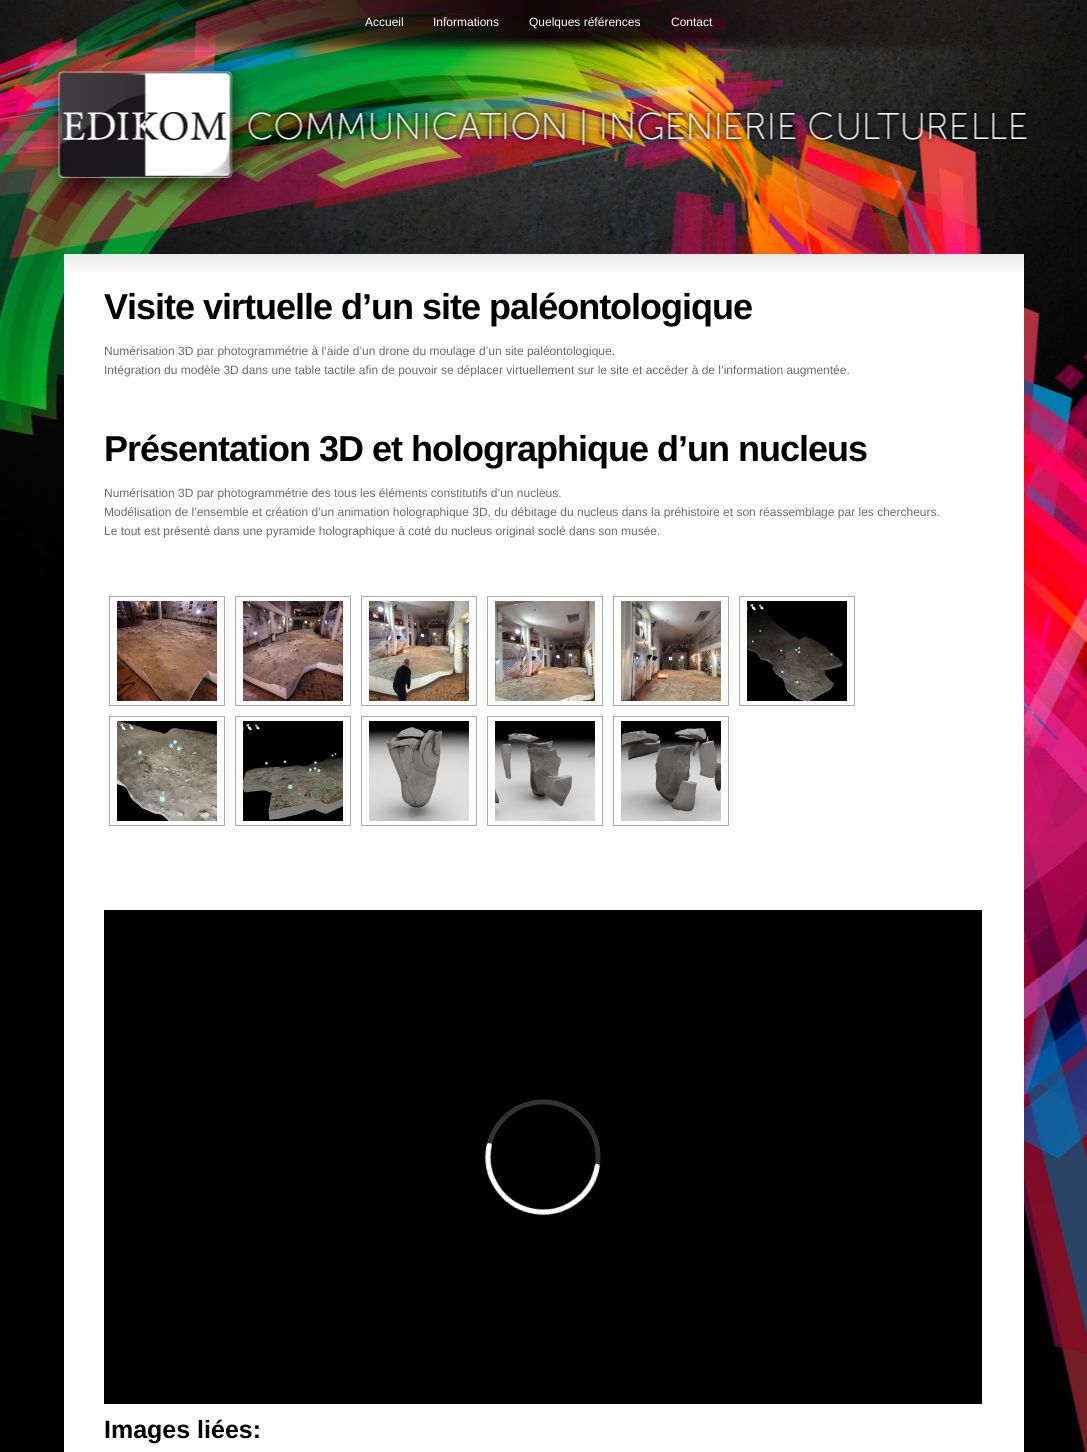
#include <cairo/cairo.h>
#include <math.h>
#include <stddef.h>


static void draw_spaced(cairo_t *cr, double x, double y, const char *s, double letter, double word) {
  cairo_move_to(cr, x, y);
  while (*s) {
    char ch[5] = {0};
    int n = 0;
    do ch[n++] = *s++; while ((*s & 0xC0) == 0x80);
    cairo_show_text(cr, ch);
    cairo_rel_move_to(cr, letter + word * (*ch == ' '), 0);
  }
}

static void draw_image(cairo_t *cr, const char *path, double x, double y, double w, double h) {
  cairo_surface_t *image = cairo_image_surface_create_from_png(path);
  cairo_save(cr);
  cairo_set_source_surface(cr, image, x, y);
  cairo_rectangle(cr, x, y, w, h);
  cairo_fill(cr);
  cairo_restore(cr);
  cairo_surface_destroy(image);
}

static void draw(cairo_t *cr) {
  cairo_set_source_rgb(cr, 1, 1, 1);
  cairo_paint(cr);
  draw_image(cr, "images/1.png", 0, 0, 1087, 1452);
  cairo_set_source_rgb(cr, 1, 1, 1);
  cairo_rectangle(cr, 64, 272, 960, 1180);
  cairo_fill(cr);
  draw_image(cr, "images/2.png", 64, 254, 960, 18);
  cairo_rectangle(cr, 109.5, 596.5, 115, 109);
  cairo_set_source_rgb(cr, 169 / 255.0, 169 / 255.0, 169 / 255.0);
  cairo_set_line_width(cr, 1);
  cairo_stroke(cr);
  draw_image(cr, "images/3.png", 117, 601, 100, 100);
  cairo_rectangle(cr, 235.5, 596.5, 115, 109);
  cairo_stroke(cr);
  draw_image(cr, "images/4.png", 243, 601, 100, 100);
  cairo_rectangle(cr, 361.5, 596.5, 115, 109);
  cairo_stroke(cr);
  draw_image(cr, "images/5.png", 369, 601, 100, 100);
  cairo_rectangle(cr, 487.5, 596.5, 115, 109);
  cairo_stroke(cr);
  draw_image(cr, "images/6.png", 495, 601, 100, 100);
  cairo_rectangle(cr, 613.5, 596.5, 115, 109);
  cairo_stroke(cr);
  draw_image(cr, "images/7.png", 621, 601, 100, 100);
  cairo_rectangle(cr, 739.5, 596.5, 115, 109);
  cairo_stroke(cr);
  draw_image(cr, "images/8.png", 747, 601, 100, 100);
  cairo_rectangle(cr, 109.5, 716.5, 115, 109);
  cairo_stroke(cr);
  draw_image(cr, "images/9.png", 117, 721, 100, 100);
  cairo_rectangle(cr, 235.5, 716.5, 115, 109);
  cairo_stroke(cr);
  draw_image(cr, "images/10.png", 243, 721, 100, 100);
  cairo_rectangle(cr, 361.5, 716.5, 115, 109);
  cairo_stroke(cr);
  draw_image(cr, "images/11.png", 369, 721, 100, 100);
  cairo_rectangle(cr, 487.5, 716.5, 115, 109);
  cairo_stroke(cr);
  draw_image(cr, "images/12.png", 495, 721, 100, 100);
  cairo_rectangle(cr, 613.5, 716.5, 115, 109);
  cairo_stroke(cr);
  draw_image(cr, "images/13.png", 621, 721, 100, 100);
  draw_image(cr, "images/14.png", 104, 910, 878, 494);
  cairo_select_font_face(cr, "Liberation Sans", CAIRO_FONT_SLANT_NORMAL, CAIRO_FONT_WEIGHT_NORMAL);
  cairo_set_font_size(cr, 12);
  cairo_set_source_rgb(cr, 1, 1, 1);
  cairo_move_to(cr, 365, 26);
  cairo_show_text(cr, "Accueil");
  cairo_move_to(cr, 433, 26);
  cairo_show_text(cr, "Informations");
  cairo_move_to(cr, 529, 26);
  cairo_show_text(cr, "Quelques références");
  cairo_move_to(cr, 671, 26);
  cairo_show_text(cr, "Contact");
  cairo_select_font_face(cr, "Liberation Sans", CAIRO_FONT_SLANT_NORMAL, CAIRO_FONT_WEIGHT_BOLD);
  cairo_set_font_size(cr, 36);
  cairo_set_source_rgb(cr, 0, 0, 0);
  draw_spaced(cr, 104, 319, "Visite virtuelle d’un site paléontologique", -1, 0);
  cairo_select_font_face(cr, "Liberation Sans", CAIRO_FONT_SLANT_NORMAL, CAIRO_FONT_WEIGHT_NORMAL);
  cairo_set_font_size(cr, 12);
  cairo_set_source_rgb(cr, 105 / 255.0, 105 / 255.0, 105 / 255.0);
  cairo_move_to(cr, 104, 355);
  cairo_show_text(cr, "Numérisation 3D par photogrammétrie à l’aide d’un drone du moulage d’un site paléontologique.");
  cairo_move_to(cr, 104, 374);
  cairo_show_text(cr, "Intégration du modèle 3D dans une table tactile afin de pouvoir se déplacer virtuellement sur le site et accéder à de l’information augmentée.");
  cairo_select_font_face(cr, "Liberation Sans", CAIRO_FONT_SLANT_NORMAL, CAIRO_FONT_WEIGHT_BOLD);
  cairo_set_font_size(cr, 36);
  cairo_set_source_rgb(cr, 0, 0, 0);
  draw_spaced(cr, 104, 461, "Présentation 3D et holographique d’un nucleus", -1, 0);
  cairo_select_font_face(cr, "Liberation Sans", CAIRO_FONT_SLANT_NORMAL, CAIRO_FONT_WEIGHT_NORMAL);
  cairo_set_font_size(cr, 12);
  cairo_set_source_rgb(cr, 105 / 255.0, 105 / 255.0, 105 / 255.0);
  cairo_move_to(cr, 104, 497);
  cairo_show_text(cr, "Numérisation 3D par photogrammétrie des tous les éléments constitutifs d’un nucleus.");
  cairo_move_to(cr, 104, 516);
  cairo_show_text(cr, "Modélisation de l’ensemble et création d’un animation holographique 3D, du débitage du nucleus dans la préhistoire et son réassemblage par les chercheurs.");
  cairo_move_to(cr, 104, 535);
  cairo_show_text(cr, "Le tout est présenté dans une pyramide holographique à coté du nucleus original soclé dans son musée.");
  cairo_select_font_face(cr, "Liberation Sans", CAIRO_FONT_SLANT_NORMAL, CAIRO_FONT_WEIGHT_BOLD);
  cairo_set_font_size(cr, 25);
  cairo_set_source_rgb(cr, 0, 0, 0);
  cairo_move_to(cr, 104, 1438);
  cairo_show_text(cr, "Images liées:");
}

int main(void) {
  cairo_surface_t *surface = cairo_image_surface_create(CAIRO_FORMAT_RGB24, 1087, 1452);
  cairo_t *cr = cairo_create(surface);
  cairo_font_options_t *options = cairo_font_options_create();
  cairo_font_options_set_hint_metrics(options, CAIRO_HINT_METRICS_OFF);
  cairo_font_options_set_hint_style(options, CAIRO_HINT_STYLE_NONE);
  cairo_set_font_options(cr, options);
  cairo_set_miter_limit(cr, 4);
  draw(cr);
  cairo_surface_write_to_png(surface, "out.png");
  cairo_font_options_destroy(options);
  cairo_destroy(cr);
  cairo_surface_destroy(surface);
  return 0;
}
